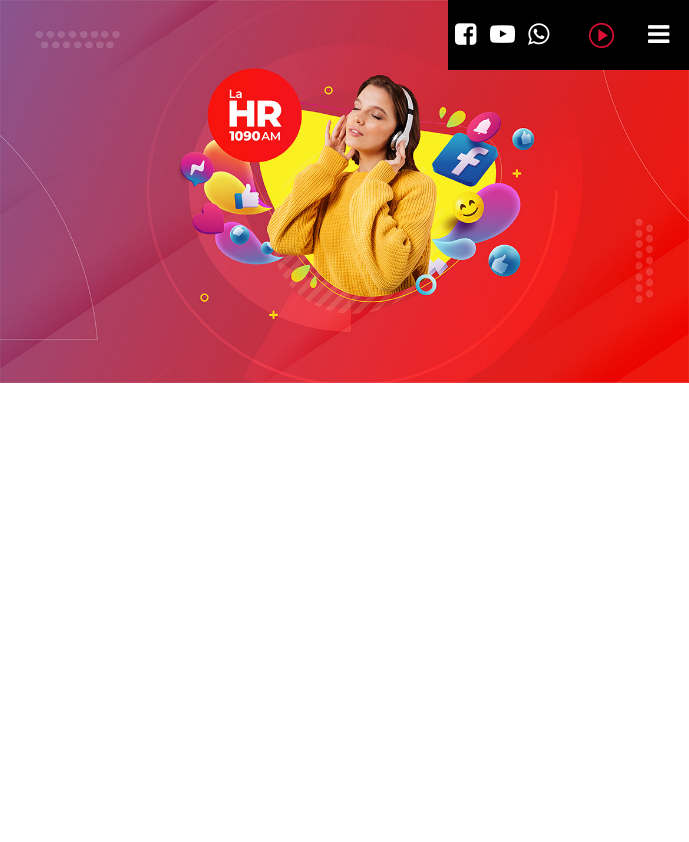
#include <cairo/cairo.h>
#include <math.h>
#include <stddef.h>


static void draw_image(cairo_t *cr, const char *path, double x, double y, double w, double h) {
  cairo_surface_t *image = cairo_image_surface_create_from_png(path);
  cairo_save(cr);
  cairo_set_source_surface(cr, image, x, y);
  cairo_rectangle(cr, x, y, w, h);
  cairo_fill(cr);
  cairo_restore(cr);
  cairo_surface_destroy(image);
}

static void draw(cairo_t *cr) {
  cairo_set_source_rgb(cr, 1, 1, 1);
  cairo_paint(cr);
  draw_image(cr, "images/1.png", 0, 0, 689, 383);
  cairo_set_source_rgb(cr, 0, 0, 0);
  cairo_rectangle(cr, 448, 0, 241, 70);
  cairo_fill(cr);
  draw_image(cr, "images/2.png", 455, 23, 22, 22);
  draw_image(cr, "images/3.png", 490, 25, 25, 18);
  draw_image(cr, "images/4.png", 528, 23, 22, 22);
  draw_image(cr, "images/5.png", 589, 23, 25, 25);
  draw_image(cr, "images/6.png", 648, 25, 22, 18);
}

int main(void) {
  cairo_surface_t *surface = cairo_image_surface_create(CAIRO_FORMAT_RGB24, 689, 842);
  cairo_t *cr = cairo_create(surface);
  cairo_font_options_t *options = cairo_font_options_create();
  cairo_font_options_set_hint_metrics(options, CAIRO_HINT_METRICS_OFF);
  cairo_font_options_set_hint_style(options, CAIRO_HINT_STYLE_NONE);
  cairo_set_font_options(cr, options);
  cairo_set_miter_limit(cr, 4);
  draw(cr);
  cairo_surface_write_to_png(surface, "out.png");
  cairo_font_options_destroy(options);
  cairo_destroy(cr);
  cairo_surface_destroy(surface);
  return 0;
}
